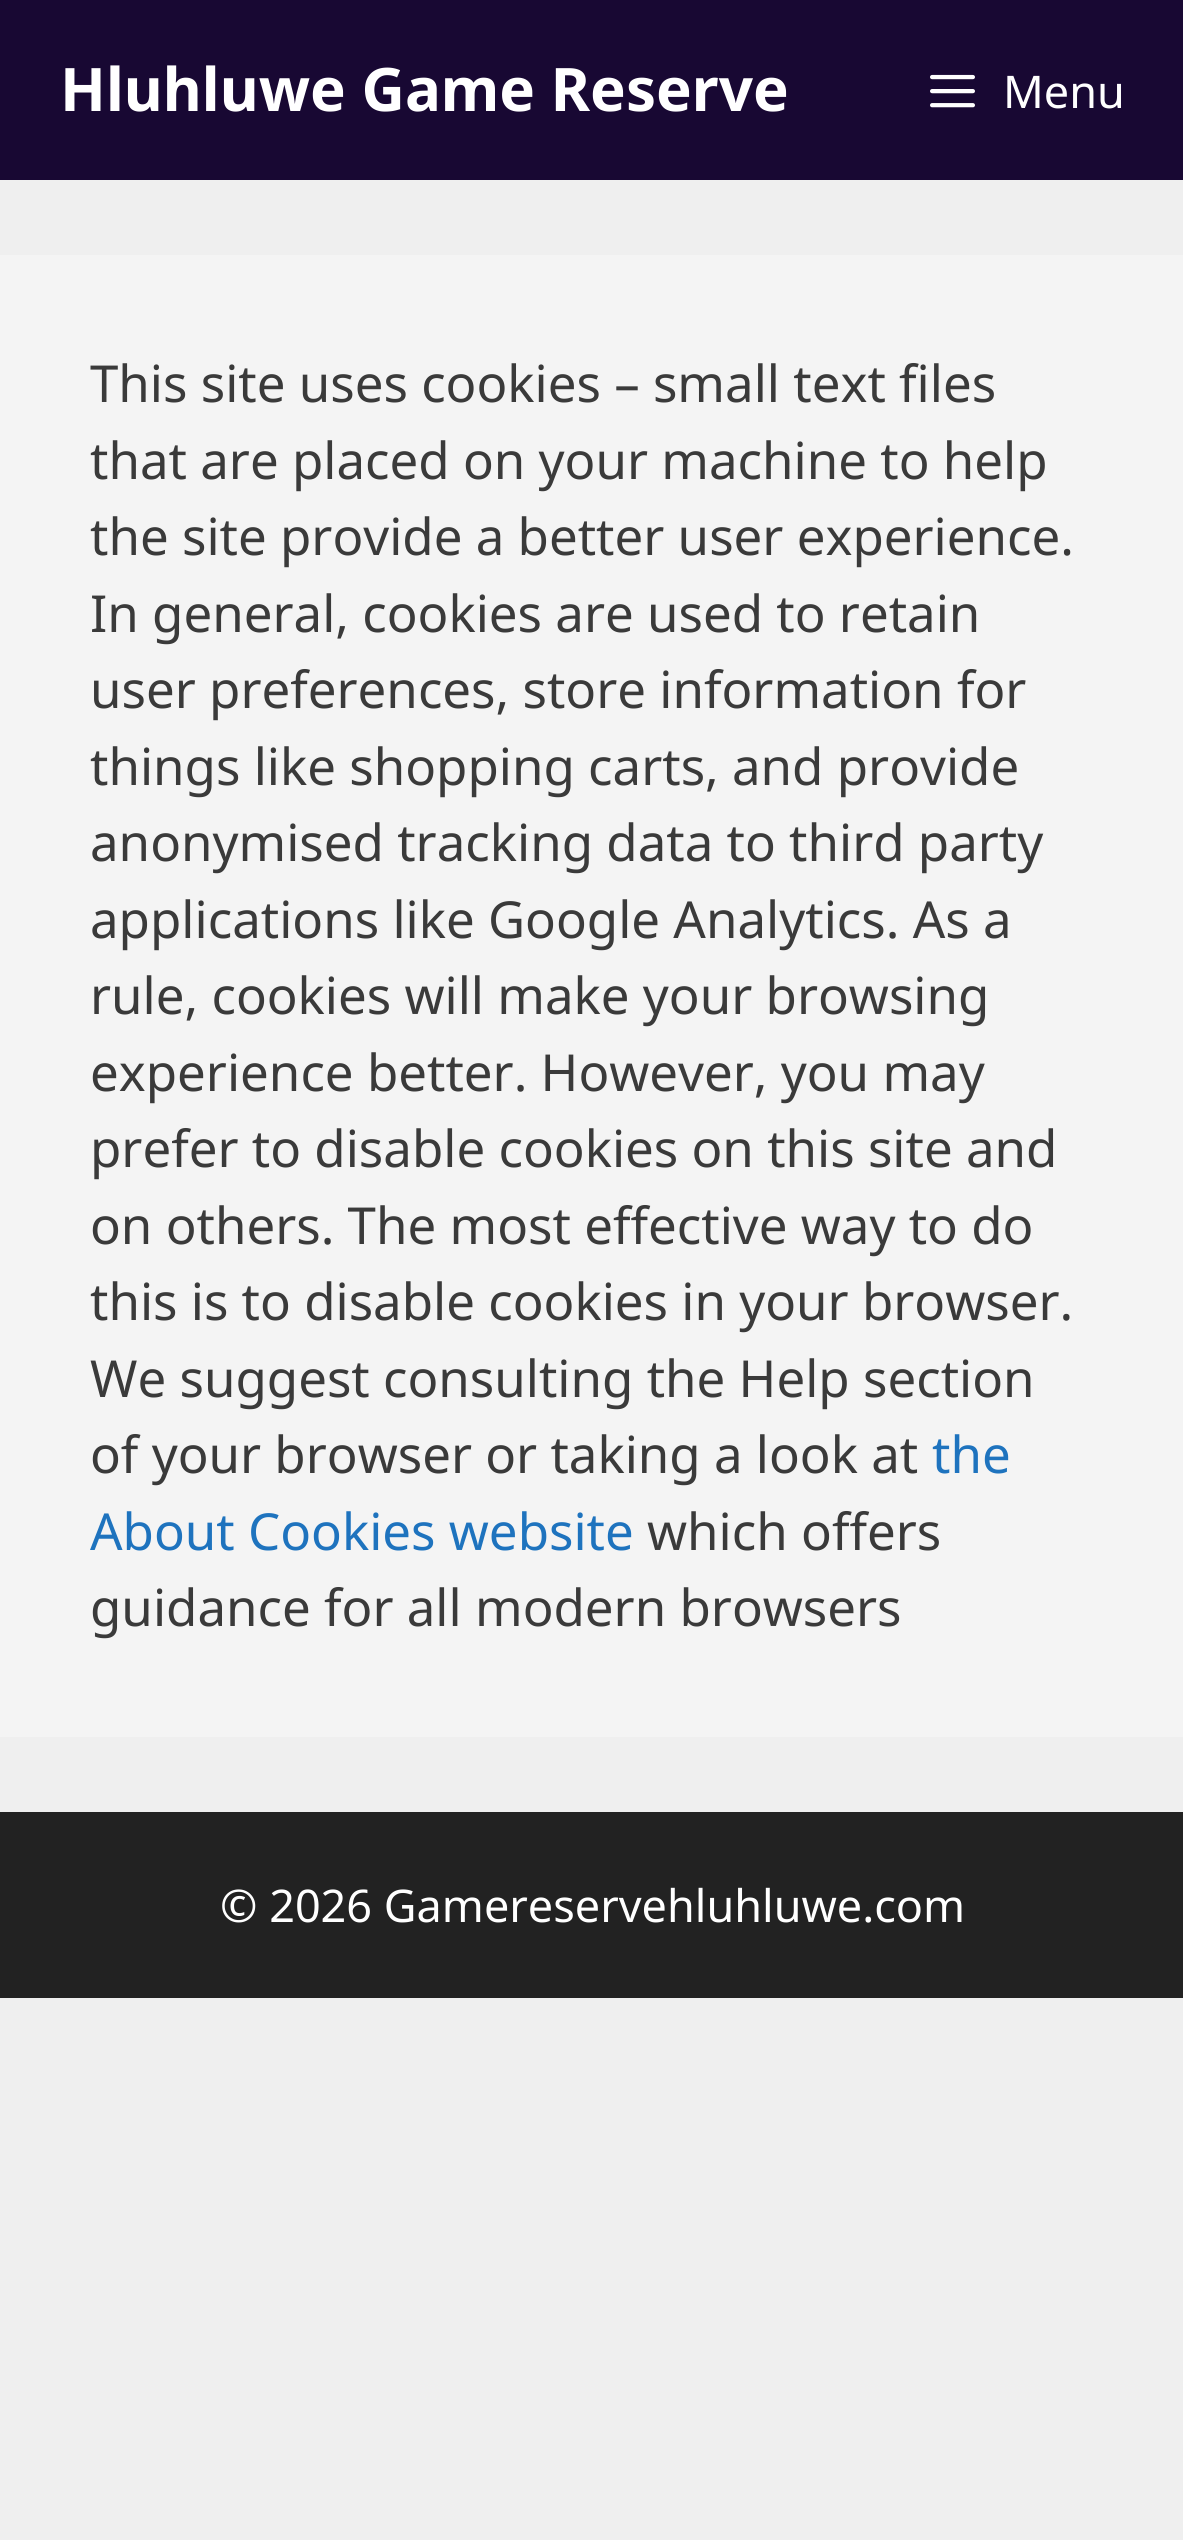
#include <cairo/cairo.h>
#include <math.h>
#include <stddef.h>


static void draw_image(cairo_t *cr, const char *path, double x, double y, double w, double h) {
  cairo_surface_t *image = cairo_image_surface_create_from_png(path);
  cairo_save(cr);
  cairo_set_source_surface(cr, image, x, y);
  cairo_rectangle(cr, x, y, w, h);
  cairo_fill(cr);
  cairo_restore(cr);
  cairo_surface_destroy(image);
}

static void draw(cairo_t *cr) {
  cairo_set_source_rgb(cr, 239 / 255.0, 239 / 255.0, 239 / 255.0);
  cairo_paint(cr);
  cairo_set_source_rgb(cr, 24 / 255.0, 8 / 255.0, 51 / 255.0);
  cairo_rectangle(cr, 0, 0, 1183, 180);
  cairo_fill(cr);
  draw_image(cr, "images/1.png", 930, 74, 45, 34);
  cairo_set_source_rgb(cr, 244 / 255.0, 244 / 255.0, 244 / 255.0);
  cairo_rectangle(cr, 0, 255, 1183, 1482);
  cairo_fill(cr);
  cairo_set_source_rgb(cr, 34 / 255.0, 34 / 255.0, 34 / 255.0);
  cairo_rectangle(cr, 0, 1812, 1183, 186);
  cairo_fill(cr);
  cairo_select_font_face(cr, "Noto Sans", CAIRO_FONT_SLANT_NORMAL, CAIRO_FONT_WEIGHT_BOLD);
  cairo_set_font_size(cr, 60);
  cairo_set_source_rgb(cr, 1, 1, 1);
  cairo_move_to(cr, 60, 111);
  cairo_show_text(cr, "Hluhluwe Game Reserve");
  cairo_select_font_face(cr, "Noto Sans", CAIRO_FONT_SLANT_NORMAL, CAIRO_FONT_WEIGHT_NORMAL);
  cairo_set_font_size(cr, 45);
  cairo_move_to(cr, 1003, 108);
  cairo_show_text(cr, "Menu");
  cairo_set_font_size(cr, 51);
  cairo_set_source_rgb(cr, 58 / 255.0, 58 / 255.0, 58 / 255.0);
  cairo_move_to(cr, 90, 402);
  cairo_show_text(cr, "This site uses cookies – small text files");
  cairo_move_to(cr, 90, 479);
  cairo_show_text(cr, "that are placed on your machine to help");
  cairo_move_to(cr, 90, 555);
  cairo_show_text(cr, "the site provide a better user experience.");
  cairo_move_to(cr, 90, 632);
  cairo_show_text(cr, "In general, cookies are used to retain");
  cairo_move_to(cr, 90, 708);
  cairo_show_text(cr, "user preferences, store information for");
  cairo_move_to(cr, 90, 785);
  cairo_show_text(cr, "things like shopping carts, and provide");
  cairo_move_to(cr, 90, 861);
  cairo_show_text(cr, "anonymised tracking data to third party");
  cairo_move_to(cr, 90, 938);
  cairo_show_text(cr, "applications like Google Analytics. As a");
  cairo_move_to(cr, 90, 1014);
  cairo_show_text(cr, "rule, cookies will make your browsing");
  cairo_move_to(cr, 90, 1091);
  cairo_show_text(cr, "experience better. However, you may");
  cairo_move_to(cr, 90, 1167);
  cairo_show_text(cr, "prefer to disable cookies on this site and");
  cairo_move_to(cr, 90, 1244);
  cairo_show_text(cr, "on others. The most effective way to do");
  cairo_move_to(cr, 90, 1320);
  cairo_show_text(cr, "this is to disable cookies in your browser.");
  cairo_move_to(cr, 90, 1397);
  cairo_show_text(cr, "We suggest consulting the Help section");
  cairo_move_to(cr, 90, 1473);
  cairo_show_text(cr, "of your browser or taking a look at");
  cairo_set_source_rgb(cr, 30 / 255.0, 115 / 255.0, 190 / 255.0);
  cairo_move_to(cr, 932, 1473);
  cairo_show_text(cr, "the");
  cairo_move_to(cr, 90, 1550);
  cairo_show_text(cr, "About Cookies website");
  cairo_set_source_rgb(cr, 58 / 255.0, 58 / 255.0, 58 / 255.0);
  cairo_move_to(cr, 647, 1550);
  cairo_show_text(cr, "which offers");
  cairo_move_to(cr, 90, 1626);
  cairo_show_text(cr, "guidance for all modern browsers");
  cairo_set_font_size(cr, 45);
  cairo_set_source_rgb(cr, 1, 1, 1);
  cairo_move_to(cr, 220, 1922);
  cairo_show_text(cr, "© 2026 Gamereservehluhluwe.com");
}

int main(void) {
  cairo_surface_t *surface = cairo_image_surface_create(CAIRO_FORMAT_RGB24, 1183, 2540);
  cairo_t *cr = cairo_create(surface);
  cairo_font_options_t *options = cairo_font_options_create();
  cairo_font_options_set_hint_metrics(options, CAIRO_HINT_METRICS_OFF);
  cairo_font_options_set_hint_style(options, CAIRO_HINT_STYLE_NONE);
  cairo_set_font_options(cr, options);
  cairo_set_miter_limit(cr, 4);
  draw(cr);
  cairo_surface_write_to_png(surface, "out.png");
  cairo_font_options_destroy(options);
  cairo_destroy(cr);
  cairo_surface_destroy(surface);
  return 0;
}
